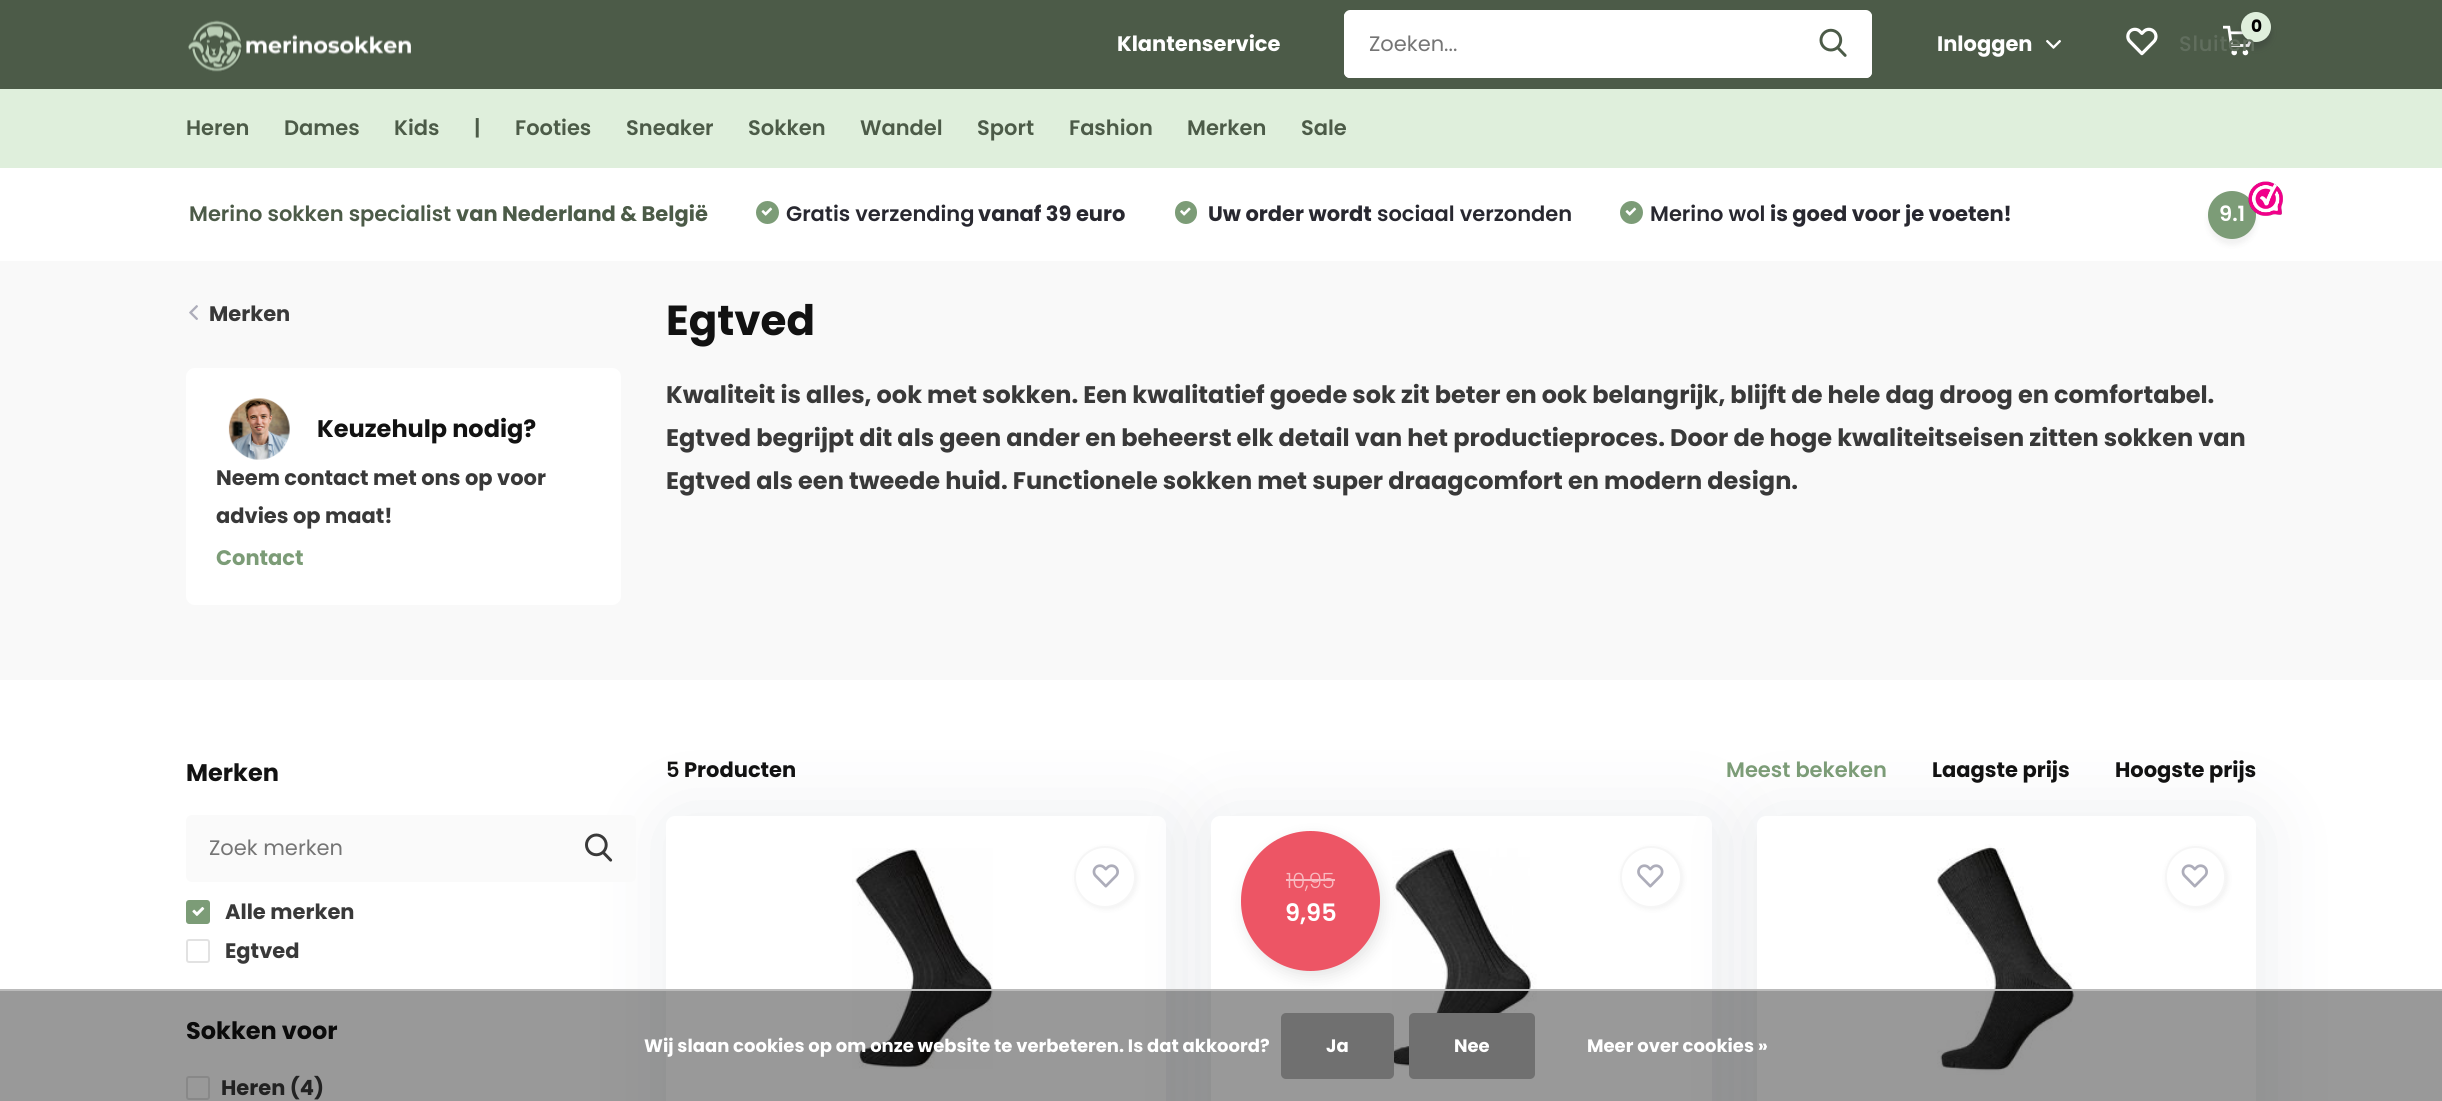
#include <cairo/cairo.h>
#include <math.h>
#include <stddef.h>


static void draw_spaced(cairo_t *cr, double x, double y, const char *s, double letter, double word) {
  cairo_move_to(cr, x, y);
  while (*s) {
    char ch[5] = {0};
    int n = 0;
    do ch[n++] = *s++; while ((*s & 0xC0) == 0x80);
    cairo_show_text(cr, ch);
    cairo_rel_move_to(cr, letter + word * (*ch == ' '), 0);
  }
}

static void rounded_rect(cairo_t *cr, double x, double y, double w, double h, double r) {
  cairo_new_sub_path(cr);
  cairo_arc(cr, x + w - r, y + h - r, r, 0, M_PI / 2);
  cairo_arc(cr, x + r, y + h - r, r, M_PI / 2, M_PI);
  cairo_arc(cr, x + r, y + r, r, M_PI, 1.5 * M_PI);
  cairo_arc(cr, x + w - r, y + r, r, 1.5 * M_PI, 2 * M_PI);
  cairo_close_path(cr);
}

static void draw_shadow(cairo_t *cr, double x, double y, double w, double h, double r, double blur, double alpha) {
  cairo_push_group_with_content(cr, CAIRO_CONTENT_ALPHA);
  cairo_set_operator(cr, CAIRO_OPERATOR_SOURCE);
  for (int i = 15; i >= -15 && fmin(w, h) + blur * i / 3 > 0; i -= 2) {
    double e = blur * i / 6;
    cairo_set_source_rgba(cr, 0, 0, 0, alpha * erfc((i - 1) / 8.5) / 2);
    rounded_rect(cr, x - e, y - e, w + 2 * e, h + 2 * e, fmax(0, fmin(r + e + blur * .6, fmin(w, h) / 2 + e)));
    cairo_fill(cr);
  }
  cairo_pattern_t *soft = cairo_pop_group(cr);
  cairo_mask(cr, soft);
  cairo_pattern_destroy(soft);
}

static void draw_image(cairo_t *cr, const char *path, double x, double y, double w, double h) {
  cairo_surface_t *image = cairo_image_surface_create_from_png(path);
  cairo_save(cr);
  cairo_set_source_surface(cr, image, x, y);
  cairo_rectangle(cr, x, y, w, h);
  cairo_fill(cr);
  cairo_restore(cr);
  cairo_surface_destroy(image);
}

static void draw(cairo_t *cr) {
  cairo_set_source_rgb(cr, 1, 1, 1);
  cairo_paint(cr);
  cairo_set_source_rgb(cr, 76 / 255.0, 91 / 255.0, 72 / 255.0);
  cairo_rectangle(cr, 0, 0, 2442, 89);
  cairo_fill(cr);
  draw_image(cr, "images/1.png", 188, 20, 223, 52);
  draw_image(cr, "images/2.png", 2223, 25, 29, 31);
  cairo_set_source_rgb(cr, 40 / 255.0, 40 / 255.0, 48 / 255.0);
  draw_shadow(cr, 2241, 18, 30, 30, 15, 3, 0.25);
  cairo_set_source_rgb(cr, 223 / 255.0, 239 / 255.0, 220 / 255.0);
  cairo_arc(cr, 2256, 27, 15, 0, 2 * M_PI);
  cairo_fill(cr);
  cairo_set_source_rgb(cr, 1, 1, 1);
  cairo_new_path(cr);
  cairo_move_to(cr, 1350, 11);
  cairo_line_to(cr, 1797, 11);
  cairo_line_to(cr, 1797, 78);
  cairo_line_to(cr, 1350, 78);
  cairo_curve_to(cr, 1346.5, 78, 1344, 75.5, 1344, 72);
  cairo_line_to(cr, 1344, 17);
  cairo_curve_to(cr, 1344, 13.5, 1346.5, 11, 1350, 11);
  cairo_close_path(cr);
  cairo_fill(cr);
  cairo_set_fill_rule(cr, CAIRO_FILL_RULE_EVEN_ODD);
  cairo_new_path(cr);
  cairo_move_to(cr, 1350, 10);
  cairo_line_to(cr, 1797, 10);
  cairo_line_to(cr, 1797, 78);
  cairo_line_to(cr, 1350, 78);
  cairo_curve_to(cr, 1347, 78, 1344, 75, 1344, 72);
  cairo_line_to(cr, 1344, 16);
  cairo_curve_to(cr, 1344, 13, 1347, 10, 1350, 10);
  cairo_close_path(cr);
  cairo_move_to(cr, 1350, 12);
  cairo_line_to(cr, 1797, 12);
  cairo_line_to(cr, 1797, 76);
  cairo_line_to(cr, 1350, 76);
  cairo_curve_to(cr, 1348, 76, 1346, 74, 1346, 72);
  cairo_line_to(cr, 1346, 16);
  cairo_curve_to(cr, 1346, 14, 1348, 12, 1350, 12);
  cairo_close_path(cr);
  cairo_fill(cr);
  cairo_new_path(cr);
  cairo_move_to(cr, 1797, 11);
  cairo_line_to(cr, 1866, 11);
  cairo_curve_to(cr, 1869.5, 11, 1872, 13.5, 1872, 17);
  cairo_line_to(cr, 1872, 72);
  cairo_curve_to(cr, 1872, 75.5, 1869.5, 78, 1866, 78);
  cairo_line_to(cr, 1797, 78);
  cairo_close_path(cr);
  cairo_fill(cr);
  cairo_new_path(cr);
  cairo_move_to(cr, 1797, 10);
  cairo_line_to(cr, 1866, 10);
  cairo_curve_to(cr, 1869, 10, 1872, 13, 1872, 16);
  cairo_line_to(cr, 1872, 72);
  cairo_curve_to(cr, 1872, 75, 1869, 78, 1866, 78);
  cairo_line_to(cr, 1797, 78);
  cairo_close_path(cr);
  cairo_move_to(cr, 1797, 12);
  cairo_line_to(cr, 1866, 12);
  cairo_curve_to(cr, 1868, 12, 1870, 14, 1870, 16);
  cairo_line_to(cr, 1870, 72);
  cairo_curve_to(cr, 1870, 74, 1868, 76, 1866, 76);
  cairo_line_to(cr, 1797, 76);
  cairo_close_path(cr);
  cairo_fill(cr);
  draw_image(cr, "images/3.png", 1819, 28, 28, 29);
  draw_image(cr, "images/4.png", 2046, 40, 15, 9);
  draw_image(cr, "images/5.png", 2126, 27, 32, 29);
  cairo_set_source_rgb(cr, 223 / 255.0, 239 / 255.0, 220 / 255.0);
  cairo_rectangle(cr, 0, 89, 2442, 79);
  cairo_fill(cr);
  cairo_set_source_rgb(cr, 124 / 255.0, 156 / 255.0, 119 / 255.0);
  cairo_arc(cr, 767.5, 212.5, 11.5, 0, 2 * M_PI);
  cairo_fill(cr);
  draw_image(cr, "images/6.png", 761, 207, 12, 9);
  rounded_rect(cr, 1175, 201, 22, 23, 11);
  cairo_fill(cr);
  draw_image(cr, "images/7.png", 1180, 207, 11, 9);
  cairo_arc(cr, 1631.5, 212.5, 11.5, 0, 2 * M_PI);
  cairo_fill(cr);
  draw_image(cr, "images/6.png", 1625, 207, 12, 9);
  cairo_set_source_rgb(cr, 0, 0, 0);
  draw_shadow(cr, 2208, 197, 48, 48, 24, 3, 0.06);
  cairo_set_source_rgb(cr, 124 / 255.0, 156 / 255.0, 119 / 255.0);
  cairo_arc(cr, 2232, 215, 24, 0, 2 * M_PI);
  cairo_fill(cr);
  draw_image(cr, "images/8.png", 2248, 181, 35, 35);
  cairo_set_source_rgb(cr, 249 / 255.0, 249 / 255.0, 249 / 255.0);
  cairo_rectangle(cr, 0, 261, 2442, 419);
  cairo_fill(cr);
  draw_image(cr, "images/9.png", 189, 305, 9, 15);
  cairo_set_source_rgb(cr, 1, 1, 1);
  rounded_rect(cr, 186, 368, 435, 237, 9);
  cairo_fill(cr);
  draw_image(cr, "images/10.png", 228, 398, 62, 62);
  cairo_set_source_rgb(cr, 38 / 255.0, 63 / 255.0, 77 / 255.0);
  draw_shadow(cr, 669, 819, 500, 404, 9, 37.5, 0.1);
  cairo_set_source_rgb(cr, 250 / 255.0, 250 / 255.0, 250 / 255.0);
  rounded_rect(cr, 186, 815, 450, 67, 6);
  cairo_fill(cr);
  draw_image(cr, "images/11.png", 585, 833, 28, 29);
  cairo_set_source_rgb(cr, 124 / 255.0, 156 / 255.0, 119 / 255.0);
  rounded_rect(cr, 187, 901, 22, 22, 2);
  cairo_fill_preserve(cr);
  cairo_stroke(cr);
  draw_image(cr, "images/12.png", 192, 907, 13, 9);
  rounded_rect(cr, 187, 940, 22, 22, 2);
  cairo_set_source_rgb(cr, 226 / 255.0, 226 / 255.0, 226 / 255.0);
  cairo_stroke(cr);
  rounded_rect(cr, 187, 1077, 22, 22, 2);
  cairo_stroke(cr);
  cairo_set_source_rgb(cr, 1, 1, 1);
  rounded_rect(cr, 666, 816, 500, 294, 9);
  cairo_fill(cr);
  draw_image(cr, "images/13.png", 852, 848, 141, 221);
  cairo_set_source_rgb(cr, 0, 0, 0);
  draw_shadow(cr, 1076, 848, 61, 61, 30.5, 3, 0.06);
  cairo_set_source_rgb(cr, 38 / 255.0, 63 / 255.0, 77 / 255.0);
  draw_shadow(cr, 1214, 819, 501, 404, 9, 37.5, 0.1);
  cairo_set_source_rgb(cr, 1, 1, 1);
  cairo_arc(cr, 1105, 877, 30, 0, 2 * M_PI);
  cairo_fill_preserve(cr);
  cairo_set_source_rgb(cr, 246 / 255.0, 246 / 255.0, 246 / 255.0);
  cairo_stroke(cr);
  draw_image(cr, "images/14.png", 1092, 864, 27, 24);
  cairo_set_source_rgb(cr, 1, 1, 1);
  rounded_rect(cr, 1211, 816, 501, 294, 9);
  cairo_fill(cr);
  draw_image(cr, "images/15.png", 1389, 848, 148, 221);
  cairo_set_source_rgb(cr, 0, 0, 0);
  draw_shadow(cr, 1244, 837, 139, 140, 69.5, 7.5, 0.1);
  cairo_set_source_rgb(cr, 237 / 255.0, 85 / 255.0, 101 / 255.0);
  rounded_rect(cr, 1241, 831, 139, 140, 69.5);
  cairo_fill(cr);
  cairo_set_source_rgb(cr, 248 / 255.0, 187 / 255.0, 193 / 255.0);
  cairo_rectangle(cr, 1286, 879, 49, 2);
  cairo_fill(cr);
  cairo_set_source_rgb(cr, 0, 0, 0);
  draw_shadow(cr, 1622, 848, 61, 61, 30.5, 3, 0.06);
  cairo_set_source_rgb(cr, 38 / 255.0, 63 / 255.0, 77 / 255.0);
  draw_shadow(cr, 1760, 819, 499, 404, 9, 37.5, 0.1);
  cairo_set_source_rgb(cr, 1, 1, 1);
  cairo_arc(cr, 1651, 877, 30, 0, 2 * M_PI);
  cairo_fill_preserve(cr);
  cairo_set_source_rgb(cr, 246 / 255.0, 246 / 255.0, 246 / 255.0);
  cairo_stroke(cr);
  draw_image(cr, "images/16.png", 1637, 864, 27, 24);
  cairo_set_source_rgb(cr, 1, 1, 1);
  rounded_rect(cr, 1757, 816, 499, 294, 9);
  cairo_fill(cr);
  draw_image(cr, "images/17.png", 1937, 844, 139, 231);
  cairo_set_source_rgb(cr, 0, 0, 0);
  draw_shadow(cr, 2166, 848, 62, 61, 30.5, 3, 0.06);
  cairo_set_source_rgb(cr, 1, 1, 1);
  rounded_rect(cr, 2166, 847, 59, 60, 29.5);
  cairo_fill_preserve(cr);
  cairo_set_source_rgb(cr, 246 / 255.0, 246 / 255.0, 246 / 255.0);
  cairo_stroke(cr);
  draw_image(cr, "images/14.png", 2181, 864, 27, 24);
  cairo_set_source_rgb(cr, 187 / 255.0, 187 / 255.0, 187 / 255.0);
  cairo_rectangle(cr, 0, 989, 2442, 2);
  cairo_fill(cr);
  cairo_select_font_face(cr, "Poppins", CAIRO_FONT_SLANT_NORMAL, CAIRO_FONT_WEIGHT_BOLD);
  cairo_set_font_size(cr, 17);
  cairo_set_source_rgb(cr, 0, 0, 0);
  cairo_move_to(cr, 2251, 32);
  cairo_show_text(cr, "0");
  cairo_set_font_size(cr, 21);
  cairo_set_source_rgb(cr, 1, 1, 1);
  cairo_move_to(cr, 1117, 51);
  cairo_show_text(cr, "Klantenservice");
  cairo_select_font_face(cr, "Poppins", CAIRO_FONT_SLANT_NORMAL, CAIRO_FONT_WEIGHT_NORMAL);
  cairo_set_source_rgb(cr, 117 / 255.0, 117 / 255.0, 117 / 255.0);
  cairo_move_to(cr, 1369, 51);
  cairo_show_text(cr, "Zoeken...");
  cairo_select_font_face(cr, "Poppins", CAIRO_FONT_SLANT_NORMAL, CAIRO_FONT_WEIGHT_BOLD);
  cairo_set_source_rgb(cr, 1, 1, 1);
  cairo_move_to(cr, 1937, 51);
  cairo_show_text(cr, "Inloggen");
  cairo_select_font_face(cr, "Poppins Medium", CAIRO_FONT_SLANT_NORMAL, CAIRO_FONT_WEIGHT_NORMAL);
  cairo_set_source_rgb(cr, 97 / 255.0, 110 / 255.0, 94 / 255.0);
  draw_spaced(cr, 2179, 51, "Sluiten", 0.75, 0);
  cairo_select_font_face(cr, "Poppins SemiBold", CAIRO_FONT_SLANT_NORMAL, CAIRO_FONT_WEIGHT_NORMAL);
  cairo_set_source_rgb(cr, 76 / 255.0, 91 / 255.0, 72 / 255.0);
  cairo_move_to(cr, 186, 135);
  cairo_show_text(cr, "Heren");
  cairo_move_to(cr, 284, 135);
  cairo_show_text(cr, "Dames");
  cairo_move_to(cr, 394, 135);
  cairo_show_text(cr, "Kids");
  cairo_move_to(cr, 474, 135);
  cairo_show_text(cr, "|");
  cairo_move_to(cr, 515, 135);
  cairo_show_text(cr, "Footies");
  cairo_move_to(cr, 626, 135);
  cairo_show_text(cr, "Sneaker");
  cairo_move_to(cr, 748, 135);
  cairo_show_text(cr, "Sokken");
  cairo_move_to(cr, 860, 135);
  cairo_show_text(cr, "Wandel");
  cairo_move_to(cr, 977, 135);
  cairo_show_text(cr, "Sport");
  cairo_move_to(cr, 1069, 135);
  cairo_show_text(cr, "Fashion");
  cairo_move_to(cr, 1187, 135);
  cairo_show_text(cr, "Merken");
  cairo_move_to(cr, 1301, 135);
  cairo_show_text(cr, "Sale");
  cairo_move_to(cr, 189, 221);
  cairo_show_text(cr, "Merino sokken specialist");
  cairo_select_font_face(cr, "Poppins", CAIRO_FONT_SLANT_NORMAL, CAIRO_FONT_WEIGHT_BOLD);
  cairo_move_to(cr, 456, 221);
  cairo_show_text(cr, "van Nederland & België");
  cairo_select_font_face(cr, "Poppins SemiBold", CAIRO_FONT_SLANT_NORMAL, CAIRO_FONT_WEIGHT_NORMAL);
  cairo_set_source_rgb(cr, 40 / 255.0, 40 / 255.0, 48 / 255.0);
  cairo_move_to(cr, 786, 221);
  cairo_show_text(cr, "Gratis verzending");
  cairo_select_font_face(cr, "Poppins", CAIRO_FONT_SLANT_NORMAL, CAIRO_FONT_WEIGHT_BOLD);
  cairo_move_to(cr, 978, 221);
  cairo_show_text(cr, "vanaf 39 euro");
  cairo_move_to(cr, 1208, 221);
  cairo_show_text(cr, "Uw order wordt");
  cairo_select_font_face(cr, "Poppins SemiBold", CAIRO_FONT_SLANT_NORMAL, CAIRO_FONT_WEIGHT_NORMAL);
  cairo_move_to(cr, 1377, 221);
  cairo_show_text(cr, "sociaal verzonden");
  cairo_move_to(cr, 1650, 221);
  cairo_show_text(cr, "Merino wol");
  cairo_select_font_face(cr, "Poppins", CAIRO_FONT_SLANT_NORMAL, CAIRO_FONT_WEIGHT_BOLD);
  cairo_move_to(cr, 1770, 221);
  cairo_show_text(cr, "is goed voor je voeten!");
  cairo_select_font_face(cr, "Poppins SemiBold", CAIRO_FONT_SLANT_NORMAL, CAIRO_FONT_WEIGHT_NORMAL);
  cairo_set_source_rgb(cr, 1, 1, 1);
  cairo_move_to(cr, 2219, 221);
  cairo_show_text(cr, "9.1");
  cairo_select_font_face(cr, "Poppins", CAIRO_FONT_SLANT_NORMAL, CAIRO_FONT_WEIGHT_BOLD);
  cairo_set_source_rgb(cr, 57 / 255.0, 57 / 255.0, 57 / 255.0);
  cairo_move_to(cr, 209, 321);
  cairo_show_text(cr, "Merken");
  cairo_set_font_size(cr, 24);
  cairo_set_source_rgb(cr, 18 / 255.0, 18 / 255.0, 18 / 255.0);
  cairo_move_to(cr, 317, 437);
  cairo_show_text(cr, "Keuzehulp nodig?");
  cairo_set_font_size(cr, 21);
  cairo_set_source_rgb(cr, 57 / 255.0, 57 / 255.0, 57 / 255.0);
  cairo_move_to(cr, 216, 485);
  cairo_show_text(cr, "Neem contact met ons op voor");
  cairo_move_to(cr, 216, 523);
  cairo_show_text(cr, "advies op maat!");
  cairo_set_source_rgb(cr, 124 / 255.0, 156 / 255.0, 119 / 255.0);
  cairo_move_to(cr, 216, 565);
  cairo_show_text(cr, "Contact");
  cairo_set_font_size(cr, 42);
  cairo_set_source_rgb(cr, 18 / 255.0, 18 / 255.0, 18 / 255.0);
  cairo_move_to(cr, 666, 335);
  cairo_show_text(cr, "Egtved");
  cairo_set_font_size(cr, 24);
  cairo_set_source_rgb(cr, 57 / 255.0, 57 / 255.0, 57 / 255.0);
  cairo_move_to(cr, 666, 403);
  cairo_show_text(cr, "Kwaliteit is alles, ook met sokken. Een kwalitatief goede sok zit beter en ook belangrijk, blijft de hele dag droog en comfortabel.");
  cairo_move_to(cr, 666, 446);
  cairo_show_text(cr, "Egtved begrijpt dit als geen ander en beheerst elk detail van het productieproces. Door de hoge kwaliteitseisen zitten sokken van");
  cairo_move_to(cr, 666, 489);
  cairo_show_text(cr, "Egtved als een tweede huid. Functionele sokken met super draagcomfort en modern design.");
  cairo_set_source_rgb(cr, 18 / 255.0, 18 / 255.0, 18 / 255.0);
  cairo_move_to(cr, 186, 781);
  cairo_show_text(cr, "Merken");
  cairo_select_font_face(cr, "Poppins", CAIRO_FONT_SLANT_NORMAL, CAIRO_FONT_WEIGHT_NORMAL);
  cairo_set_font_size(cr, 21);
  cairo_set_source_rgb(cr, 117 / 255.0, 117 / 255.0, 117 / 255.0);
  cairo_move_to(cr, 209, 855);
  cairo_show_text(cr, "Zoek merken");
  cairo_select_font_face(cr, "Poppins", CAIRO_FONT_SLANT_NORMAL, CAIRO_FONT_WEIGHT_BOLD);
  cairo_set_source_rgb(cr, 57 / 255.0, 57 / 255.0, 57 / 255.0);
  cairo_move_to(cr, 225, 919);
  cairo_show_text(cr, "Alle merken");
  cairo_move_to(cr, 225, 958);
  cairo_show_text(cr, "Egtved");
  cairo_set_font_size(cr, 24);
  cairo_set_source_rgb(cr, 18 / 255.0, 18 / 255.0, 18 / 255.0);
  cairo_move_to(cr, 186, 1039);
  cairo_show_text(cr, "Sokken voor");
  cairo_set_font_size(cr, 21);
  cairo_set_source_rgb(cr, 57 / 255.0, 57 / 255.0, 57 / 255.0);
  cairo_move_to(cr, 221, 1095);
  cairo_show_text(cr, "Heren (4)");
  cairo_select_font_face(cr, "Poppins SemiBold", CAIRO_FONT_SLANT_NORMAL, CAIRO_FONT_WEIGHT_NORMAL);
  cairo_set_source_rgb(cr, 18 / 255.0, 18 / 255.0, 18 / 255.0);
  cairo_move_to(cr, 666, 777);
  cairo_show_text(cr, "5");
  cairo_select_font_face(cr, "Poppins", CAIRO_FONT_SLANT_NORMAL, CAIRO_FONT_WEIGHT_BOLD);
  cairo_move_to(cr, 684, 777);
  cairo_show_text(cr, "Producten");
  cairo_select_font_face(cr, "Poppins SemiBold", CAIRO_FONT_SLANT_NORMAL, CAIRO_FONT_WEIGHT_NORMAL);
  cairo_set_source_rgb(cr, 124 / 255.0, 156 / 255.0, 119 / 255.0);
  cairo_move_to(cr, 1726, 777);
  cairo_show_text(cr, "Meest bekeken");
  cairo_select_font_face(cr, "Poppins", CAIRO_FONT_SLANT_NORMAL, CAIRO_FONT_WEIGHT_BOLD);
  cairo_set_source_rgb(cr, 18 / 255.0, 18 / 255.0, 18 / 255.0);
  cairo_move_to(cr, 1932, 777);
  cairo_show_text(cr, "Laagste prijs");
  cairo_move_to(cr, 2115, 777);
  cairo_show_text(cr, "Hoogste prijs");
  cairo_select_font_face(cr, "Poppins Light", CAIRO_FONT_SLANT_NORMAL, CAIRO_FONT_WEIGHT_NORMAL);
  cairo_set_source_rgb(cr, 248 / 255.0, 187 / 255.0, 193 / 255.0);
  cairo_move_to(cr, 1286, 888);
  cairo_show_text(cr, "10,95");
  cairo_select_font_face(cr, "Poppins SemiBold", CAIRO_FONT_SLANT_NORMAL, CAIRO_FONT_WEIGHT_NORMAL);
  cairo_set_font_size(cr, 24);
  cairo_set_source_rgb(cr, 1, 1, 1);
  cairo_move_to(cr, 1285, 921);
  cairo_show_text(cr, "9,95");
  cairo_set_source_rgba(cr, 0, 0, 0, 0.4);
  cairo_rectangle(cr, 0, 991, 2442, 110);
  cairo_fill(cr);
  cairo_select_font_face(cr, "Poppins", CAIRO_FONT_SLANT_NORMAL, CAIRO_FONT_WEIGHT_BOLD);
  cairo_set_font_size(cr, 18);
  cairo_set_source_rgb(cr, 1, 1, 1);
  cairo_move_to(cr, 644, 1052);
  cairo_show_text(cr, "Wij slaan cookies op om onze website te verbeteren. Is dat akkoord?");
  cairo_set_source_rgb(cr, 112 / 255.0, 112 / 255.0, 112 / 255.0);
  rounded_rect(cr, 1281, 1013, 113, 66, 5);
  cairo_fill(cr);
  cairo_set_source_rgb(cr, 1, 1, 1);
  cairo_move_to(cr, 1326, 1052);
  cairo_show_text(cr, "Ja");
  cairo_set_source_rgb(cr, 112 / 255.0, 112 / 255.0, 112 / 255.0);
  rounded_rect(cr, 1409, 1013, 126, 66, 5);
  cairo_fill(cr);
  cairo_set_source_rgb(cr, 1, 1, 1);
  cairo_move_to(cr, 1454, 1052);
  cairo_show_text(cr, "Nee");
  cairo_move_to(cr, 1587, 1052);
  cairo_show_text(cr, "Meer over cookies »");
}

int main(void) {
  cairo_surface_t *surface = cairo_image_surface_create(CAIRO_FORMAT_RGB24, 2442, 1101);
  cairo_t *cr = cairo_create(surface);
  cairo_font_options_t *options = cairo_font_options_create();
  cairo_font_options_set_hint_metrics(options, CAIRO_HINT_METRICS_OFF);
  cairo_font_options_set_hint_style(options, CAIRO_HINT_STYLE_NONE);
  cairo_set_font_options(cr, options);
  cairo_set_miter_limit(cr, 4);
  draw(cr);
  cairo_surface_write_to_png(surface, "out.png");
  cairo_font_options_destroy(options);
  cairo_destroy(cr);
  cairo_surface_destroy(surface);
  return 0;
}
